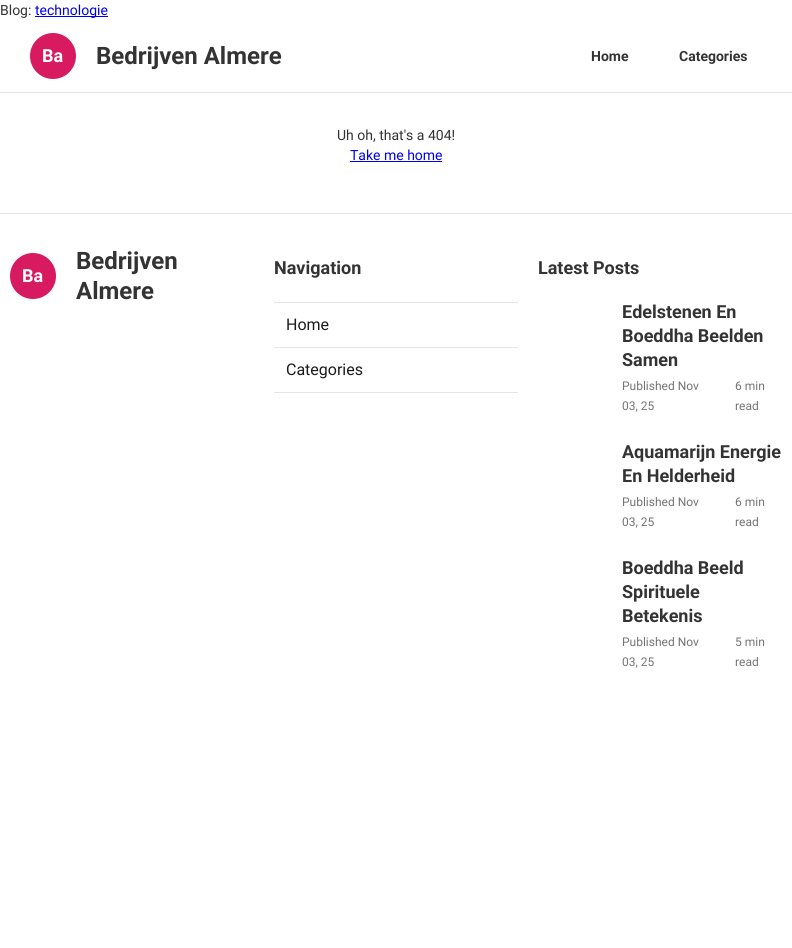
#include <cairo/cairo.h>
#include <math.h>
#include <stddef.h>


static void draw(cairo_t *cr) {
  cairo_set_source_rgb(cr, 1, 1, 1);
  cairo_paint(cr);
  cairo_set_source_rgb(cr, 0, 0, 238 / 255.0);
  cairo_rectangle(cr, 35, 16, 73, 1);
  cairo_fill(cr);
  cairo_set_source_rgb(cr, 229 / 255.0, 229 / 255.0, 229 / 255.0);
  cairo_rectangle(cr, 0, 92, 792, 1);
  cairo_fill(cr);
  cairo_set_source_rgb(cr, 216 / 255.0, 27 / 255.0, 96 / 255.0);
  cairo_arc(cr, 53, 56, 23, 0, 2 * M_PI);
  cairo_fill(cr);
  cairo_set_source_rgb(cr, 0, 0, 238 / 255.0);
  cairo_rectangle(cr, 350, 161, 92, 1);
  cairo_fill(cr);
  cairo_set_source_rgb(cr, 229 / 255.0, 229 / 255.0, 229 / 255.0);
  cairo_rectangle(cr, 0, 213, 792, 1);
  cairo_fill(cr);
  cairo_set_source_rgb(cr, 216 / 255.0, 27 / 255.0, 96 / 255.0);
  cairo_arc(cr, 33, 276, 23, 0, 2 * M_PI);
  cairo_fill(cr);
  cairo_set_source_rgb(cr, 229 / 255.0, 229 / 255.0, 229 / 255.0);
  cairo_rectangle(cr, 274, 302, 244, 1);
  cairo_fill(cr);
  cairo_rectangle(cr, 274, 347, 244, 1);
  cairo_fill(cr);
  cairo_rectangle(cr, 274, 392, 244, 1);
  cairo_fill(cr);
  cairo_select_font_face(cr, "Roboto", CAIRO_FONT_SLANT_NORMAL, CAIRO_FONT_WEIGHT_NORMAL);
  cairo_set_font_size(cr, 14);
  cairo_set_source_rgb(cr, 51 / 255.0, 51 / 255.0, 51 / 255.0);
  cairo_move_to(cr, 0, 15);
  cairo_show_text(cr, "Blog:");
  cairo_set_source_rgb(cr, 0, 0, 238 / 255.0);
  cairo_move_to(cr, 35, 15);
  cairo_show_text(cr, "technologie");
  cairo_select_font_face(cr, "Roboto", CAIRO_FONT_SLANT_NORMAL, CAIRO_FONT_WEIGHT_BOLD);
  cairo_set_font_size(cr, 18);
  cairo_set_source_rgb(cr, 1, 1, 1);
  cairo_move_to(cr, 42, 62);
  cairo_show_text(cr, "Ba");
  cairo_set_font_size(cr, 24);
  cairo_set_source_rgb(cr, 51 / 255.0, 51 / 255.0, 51 / 255.0);
  cairo_move_to(cr, 96, 64);
  cairo_show_text(cr, "Bedrijven Almere");
  cairo_set_font_size(cr, 14);
  cairo_move_to(cr, 591, 61);
  cairo_show_text(cr, "Home");
  cairo_move_to(cr, 679, 61);
  cairo_show_text(cr, "Categories");
  cairo_select_font_face(cr, "Roboto", CAIRO_FONT_SLANT_NORMAL, CAIRO_FONT_WEIGHT_NORMAL);
  cairo_move_to(cr, 337, 140);
  cairo_show_text(cr, "Uh oh, that's a 404!");
  cairo_set_source_rgb(cr, 0, 0, 238 / 255.0);
  cairo_move_to(cr, 350, 160);
  cairo_show_text(cr, "Take me home");
  cairo_select_font_face(cr, "Roboto", CAIRO_FONT_SLANT_NORMAL, CAIRO_FONT_WEIGHT_BOLD);
  cairo_set_font_size(cr, 18);
  cairo_set_source_rgb(cr, 1, 1, 1);
  cairo_move_to(cr, 22, 282);
  cairo_show_text(cr, "Ba");
  cairo_set_font_size(cr, 24);
  cairo_set_source_rgb(cr, 51 / 255.0, 51 / 255.0, 51 / 255.0);
  cairo_move_to(cr, 76, 269);
  cairo_show_text(cr, "Bedrijven");
  cairo_move_to(cr, 76, 299);
  cairo_show_text(cr, "Almere");
  cairo_set_font_size(cr, 18);
  cairo_move_to(cr, 274, 274);
  cairo_show_text(cr, "Navigation");
  cairo_select_font_face(cr, "Roboto", CAIRO_FONT_SLANT_NORMAL, CAIRO_FONT_WEIGHT_NORMAL);
  cairo_set_font_size(cr, 16);
  cairo_set_source_rgb(cr, 27 / 255.0, 27 / 255.0, 27 / 255.0);
  cairo_move_to(cr, 286, 330);
  cairo_show_text(cr, "Home");
  cairo_move_to(cr, 286, 375);
  cairo_show_text(cr, "Categories");
  cairo_select_font_face(cr, "Roboto", CAIRO_FONT_SLANT_NORMAL, CAIRO_FONT_WEIGHT_BOLD);
  cairo_set_font_size(cr, 18);
  cairo_set_source_rgb(cr, 51 / 255.0, 51 / 255.0, 51 / 255.0);
  cairo_move_to(cr, 538, 274);
  cairo_show_text(cr, "Latest Posts");
  cairo_move_to(cr, 622, 318);
  cairo_show_text(cr, "Edelstenen En");
  cairo_move_to(cr, 622, 342);
  cairo_show_text(cr, "Boeddha Beelden");
  cairo_move_to(cr, 622, 366);
  cairo_show_text(cr, "Samen");
  cairo_select_font_face(cr, "Roboto", CAIRO_FONT_SLANT_NORMAL, CAIRO_FONT_WEIGHT_NORMAL);
  cairo_set_font_size(cr, 12);
  cairo_set_source_rgb(cr, 116 / 255.0, 116 / 255.0, 116 / 255.0);
  cairo_move_to(cr, 622, 390);
  cairo_show_text(cr, "Published Nov");
  cairo_move_to(cr, 622, 410);
  cairo_show_text(cr, "03, 25");
  cairo_move_to(cr, 735, 390);
  cairo_show_text(cr, "6 min");
  cairo_move_to(cr, 735, 410);
  cairo_show_text(cr, "read");
  cairo_select_font_face(cr, "Roboto", CAIRO_FONT_SLANT_NORMAL, CAIRO_FONT_WEIGHT_BOLD);
  cairo_set_font_size(cr, 18);
  cairo_set_source_rgb(cr, 51 / 255.0, 51 / 255.0, 51 / 255.0);
  cairo_move_to(cr, 622, 458);
  cairo_show_text(cr, "Aquamarijn Energie");
  cairo_move_to(cr, 622, 482);
  cairo_show_text(cr, "En Helderheid");
  cairo_select_font_face(cr, "Roboto", CAIRO_FONT_SLANT_NORMAL, CAIRO_FONT_WEIGHT_NORMAL);
  cairo_set_font_size(cr, 12);
  cairo_set_source_rgb(cr, 116 / 255.0, 116 / 255.0, 116 / 255.0);
  cairo_move_to(cr, 622, 506);
  cairo_show_text(cr, "Published Nov");
  cairo_move_to(cr, 622, 526);
  cairo_show_text(cr, "03, 25");
  cairo_move_to(cr, 735, 506);
  cairo_show_text(cr, "6 min");
  cairo_move_to(cr, 735, 526);
  cairo_show_text(cr, "read");
  cairo_select_font_face(cr, "Roboto", CAIRO_FONT_SLANT_NORMAL, CAIRO_FONT_WEIGHT_BOLD);
  cairo_set_font_size(cr, 18);
  cairo_set_source_rgb(cr, 51 / 255.0, 51 / 255.0, 51 / 255.0);
  cairo_move_to(cr, 622, 574);
  cairo_show_text(cr, "Boeddha Beeld");
  cairo_move_to(cr, 622, 598);
  cairo_show_text(cr, "Spirituele");
  cairo_move_to(cr, 622, 622);
  cairo_show_text(cr, "Betekenis");
  cairo_select_font_face(cr, "Roboto", CAIRO_FONT_SLANT_NORMAL, CAIRO_FONT_WEIGHT_NORMAL);
  cairo_set_font_size(cr, 12);
  cairo_set_source_rgb(cr, 116 / 255.0, 116 / 255.0, 116 / 255.0);
  cairo_move_to(cr, 622, 646);
  cairo_show_text(cr, "Published Nov");
  cairo_move_to(cr, 622, 666);
  cairo_show_text(cr, "03, 25");
  cairo_move_to(cr, 735, 646);
  cairo_show_text(cr, "5 min");
  cairo_move_to(cr, 735, 666);
  cairo_show_text(cr, "read");
}

int main(void) {
  cairo_surface_t *surface = cairo_image_surface_create(CAIRO_FORMAT_RGB24, 792, 948);
  cairo_t *cr = cairo_create(surface);
  cairo_font_options_t *options = cairo_font_options_create();
  cairo_font_options_set_hint_metrics(options, CAIRO_HINT_METRICS_OFF);
  cairo_font_options_set_hint_style(options, CAIRO_HINT_STYLE_NONE);
  cairo_set_font_options(cr, options);
  cairo_set_miter_limit(cr, 4);
  draw(cr);
  cairo_surface_write_to_png(surface, "out.png");
  cairo_font_options_destroy(options);
  cairo_destroy(cr);
  cairo_surface_destroy(surface);
  return 0;
}
